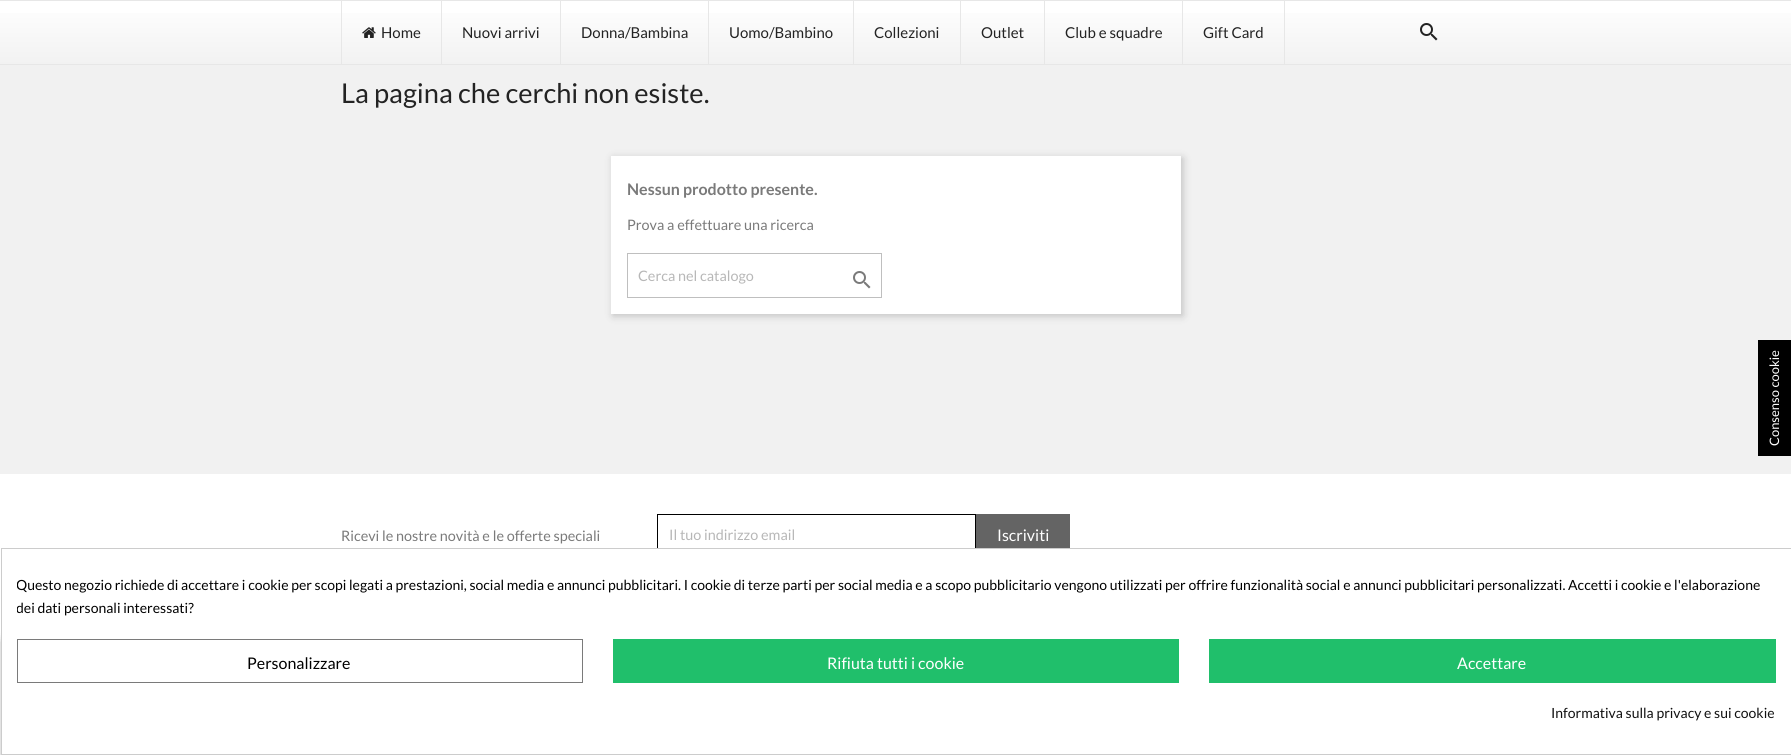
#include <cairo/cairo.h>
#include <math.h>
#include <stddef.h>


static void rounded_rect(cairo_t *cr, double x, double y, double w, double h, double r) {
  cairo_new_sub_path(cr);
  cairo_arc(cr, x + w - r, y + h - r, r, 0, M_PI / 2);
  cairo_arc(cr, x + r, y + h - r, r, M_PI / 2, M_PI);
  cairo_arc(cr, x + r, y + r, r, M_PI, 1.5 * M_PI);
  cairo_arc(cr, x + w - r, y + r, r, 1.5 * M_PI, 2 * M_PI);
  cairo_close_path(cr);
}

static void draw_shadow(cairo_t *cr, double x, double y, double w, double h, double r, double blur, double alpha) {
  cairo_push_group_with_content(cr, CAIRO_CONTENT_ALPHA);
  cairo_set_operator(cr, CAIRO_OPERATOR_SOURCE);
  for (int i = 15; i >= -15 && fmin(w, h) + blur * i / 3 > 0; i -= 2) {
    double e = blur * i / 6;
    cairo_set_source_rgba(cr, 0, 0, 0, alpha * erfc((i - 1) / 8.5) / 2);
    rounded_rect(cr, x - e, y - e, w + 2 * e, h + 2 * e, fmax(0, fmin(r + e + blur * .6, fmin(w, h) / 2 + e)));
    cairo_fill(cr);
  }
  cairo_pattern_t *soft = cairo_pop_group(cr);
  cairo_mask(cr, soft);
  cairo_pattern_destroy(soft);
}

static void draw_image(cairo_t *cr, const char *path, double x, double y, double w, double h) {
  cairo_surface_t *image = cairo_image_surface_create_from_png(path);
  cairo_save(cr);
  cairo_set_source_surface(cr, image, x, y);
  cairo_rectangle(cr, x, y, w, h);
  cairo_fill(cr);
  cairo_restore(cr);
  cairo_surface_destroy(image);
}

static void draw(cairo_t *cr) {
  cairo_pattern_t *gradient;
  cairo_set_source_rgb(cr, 1, 1, 1);
  cairo_paint(cr);
  gradient = cairo_pattern_create_linear(896, 1, 896, 64);
  cairo_pattern_add_color_stop_rgba(gradient, 0, 1, 1, 1, 1);
  cairo_pattern_add_color_stop_rgba(gradient, 1, 242 / 255.0, 242 / 255.0, 242 / 255.0, 1);
  cairo_set_source(cr, gradient);
  cairo_pattern_destroy(gradient);
  cairo_rectangle(cr, 0, 13, 1791, 51);
  cairo_fill(cr);
  cairo_set_source_rgb(cr, 231 / 255.0, 231 / 255.0, 231 / 255.0);
  cairo_rectangle(cr, 0, 0, 1791, 1);
  cairo_fill(cr);
  cairo_rectangle(cr, 0, 64, 1791, 1);
  cairo_fill(cr);
  cairo_rectangle(cr, 441, 1, 1, 63);
  cairo_fill(cr);
  cairo_rectangle(cr, 341, 1, 1, 63);
  cairo_fill(cr);
  draw_image(cr, "images/1.png", 362, 27, 14, 11);
  cairo_rectangle(cr, 560, 1, 1, 63);
  cairo_fill(cr);
  cairo_rectangle(cr, 708, 1, 1, 63);
  cairo_fill(cr);
  cairo_rectangle(cr, 853, 1, 1, 63);
  cairo_fill(cr);
  cairo_rectangle(cr, 960, 1, 1, 63);
  cairo_fill(cr);
  cairo_rectangle(cr, 1044, 1, 1, 63);
  cairo_fill(cr);
  cairo_rectangle(cr, 1182, 1, 1, 63);
  cairo_fill(cr);
  cairo_rectangle(cr, 1284, 1, 1, 63);
  cairo_fill(cr);
  draw_image(cr, "images/2.png", 1420, 23, 18, 18);
  cairo_set_source_rgb(cr, 241 / 255.0, 241 / 255.0, 241 / 255.0);
  cairo_rectangle(cr, 0, 65, 1791, 409);
  cairo_fill(cr);
  cairo_set_source_rgb(cr, 0, 0, 0);
  draw_shadow(cr, 613, 158, 570, 158, 0, 4, 0.2);
  cairo_set_source_rgb(cr, 1, 1, 1);
  cairo_rectangle(cr, 611, 156, 570, 158);
  cairo_fill(cr);
  cairo_rectangle(cr, 627.5, 253.5, 254, 44);
  cairo_set_source_rgb(cr, 191 / 255.0, 191 / 255.0, 191 / 255.0);
  cairo_set_line_width(cr, 1);
  cairo_stroke(cr);
  draw_image(cr, "images/3.png", 853, 271, 18, 18);
  cairo_rectangle(cr, 657.5, 514.5, 318, 41);
  cairo_set_source_rgb(cr, 0, 0, 0);
  cairo_stroke(cr);
  cairo_set_source_rgb(cr, 100 / 255.0, 100 / 255.0, 100 / 255.0);
  cairo_rectangle(cr, 976, 514, 94, 34);
  cairo_fill(cr);
  cairo_set_source_rgb(cr, 0, 0, 0);
  draw_shadow(cr, 2, 642, 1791, 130, 0, 5.5, 0.3);
  cairo_set_source_rgb(cr, 0, 0, 0);
  cairo_rectangle(cr, 1758, 340, 33, 116);
  cairo_fill(cr);
  cairo_set_source_rgb(cr, 1, 1, 1);
  cairo_rectangle(cr, 1.5, 548.5, 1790, 206);
  cairo_fill_preserve(cr);
  cairo_set_source_rgb(cr, 204 / 255.0, 204 / 255.0, 204 / 255.0);
  cairo_stroke(cr);
  cairo_rectangle(cr, 17.5, 639.5, 565, 43);
  cairo_set_source_rgb(cr, 122 / 255.0, 122 / 255.0, 122 / 255.0);
  cairo_stroke(cr);
  cairo_set_source_rgb(cr, 32 / 255.0, 191 / 255.0, 107 / 255.0);
  cairo_rectangle(cr, 613, 639, 566, 44);
  cairo_fill(cr);
  cairo_rectangle(cr, 1209, 639, 567, 44);
  cairo_fill(cr);
  cairo_select_font_face(cr, "Lato", CAIRO_FONT_SLANT_NORMAL, CAIRO_FONT_WEIGHT_NORMAL);
  cairo_set_font_size(cr, 15);
  cairo_set_source_rgb(cr, 35 / 255.0, 35 / 255.0, 35 / 255.0);
  cairo_move_to(cr, 381, 38);
  cairo_show_text(cr, "Home");
  cairo_move_to(cr, 462, 38);
  cairo_show_text(cr, "Nuovi arrivi");
  cairo_move_to(cr, 581, 38);
  cairo_show_text(cr, "Donna/Bambina");
  cairo_move_to(cr, 729, 38);
  cairo_show_text(cr, "Uomo/Bambino");
  cairo_move_to(cr, 874, 38);
  cairo_show_text(cr, "Collezioni");
  cairo_move_to(cr, 981, 38);
  cairo_show_text(cr, "Outlet");
  cairo_move_to(cr, 1065, 38);
  cairo_show_text(cr, "Club e squadre");
  cairo_move_to(cr, 1203, 38);
  cairo_show_text(cr, "Gift Card");
  cairo_set_font_size(cr, 27.25);
  cairo_move_to(cr, 341, 103);
  cairo_show_text(cr, "La pagina che cerchi non esiste.");
  cairo_select_font_face(cr, "Lato", CAIRO_FONT_SLANT_NORMAL, CAIRO_FONT_WEIGHT_BOLD);
  cairo_set_font_size(cr, 16);
  cairo_set_source_rgb(cr, 122 / 255.0, 122 / 255.0, 122 / 255.0);
  cairo_move_to(cr, 627, 195);
  cairo_show_text(cr, "Nessun prodotto presente.");
  cairo_select_font_face(cr, "Lato", CAIRO_FONT_SLANT_NORMAL, CAIRO_FONT_WEIGHT_NORMAL);
  cairo_set_font_size(cr, 14.4);
  cairo_move_to(cr, 627, 230);
  cairo_show_text(cr, "Prova a effettuare una ricerca");
  cairo_set_source_rgb(cr, 183 / 255.0, 183 / 255.0, 183 / 255.0);
  cairo_move_to(cr, 638, 281);
  cairo_show_text(cr, "Cerca nel catalogo");
  cairo_set_source_rgb(cr, 122 / 255.0, 122 / 255.0, 122 / 255.0);
  cairo_move_to(cr, 341, 541);
  cairo_show_text(cr, "Ricevi le nostre novità e le offerte speciali");
  cairo_set_source_rgb(cr, 183 / 255.0, 183 / 255.0, 183 / 255.0);
  cairo_move_to(cr, 669, 540);
  cairo_show_text(cr, "Il tuo indirizzo email");
  cairo_set_font_size(cr, 16);
  cairo_set_source_rgb(cr, 1, 1, 1);
  cairo_move_to(cr, 997, 541);
  cairo_show_text(cr, "Iscriviti");
  cairo_set_font_size(cr, 13);
  cairo_save(cr);
  cairo_translate(cr, 1779, 446);
  cairo_rotate(cr, -90 * M_PI / 180);
  cairo_move_to(cr, 0, 0);
  cairo_show_text(cr, "Consenso cookie");
  cairo_restore(cr);
  cairo_save(cr);
  cairo_rectangle(cr, 17, 573, 1759, 46);
  cairo_clip(cr);
  cairo_set_font_size(cr, 14);
  cairo_set_source_rgb(cr, 0, 0, 0);
  cairo_move_to(cr, 16, 590);
  cairo_show_text(cr, "Questo negozio richiede di accettare i cookie per scopi legati a prestazioni, social media e annunci pubblicitari. I cookie di terze parti per social media e a scopo pubblicitario vengono utilizzati per offrire funzionalità social e annunci pubblicitari personalizzati. Accetti i cookie e l'elaborazione");
  cairo_move_to(cr, 16, 613);
  cairo_show_text(cr, "dei dati personali interessati?");
  cairo_restore(cr);
  cairo_set_font_size(cr, 16);
  cairo_set_source_rgb(cr, 0, 0, 0);
  cairo_move_to(cr, 247, 669);
  cairo_show_text(cr, "Personalizzare");
  cairo_set_source_rgb(cr, 1, 1, 1);
  cairo_move_to(cr, 827, 669);
  cairo_show_text(cr, "Rifiuta tutti i cookie");
  cairo_move_to(cr, 1457, 669);
  cairo_show_text(cr, "Accettare");
  cairo_set_font_size(cr, 14);
  cairo_set_source_rgb(cr, 17 / 255.0, 17 / 255.0, 17 / 255.0);
  cairo_move_to(cr, 1551, 718);
  cairo_show_text(cr, "Informativa sulla privacy e sui cookie");
}

int main(void) {
  cairo_surface_t *surface = cairo_image_surface_create(CAIRO_FORMAT_RGB24, 1791, 755);
  cairo_t *cr = cairo_create(surface);
  cairo_font_options_t *options = cairo_font_options_create();
  cairo_font_options_set_hint_metrics(options, CAIRO_HINT_METRICS_OFF);
  cairo_font_options_set_hint_style(options, CAIRO_HINT_STYLE_NONE);
  cairo_set_font_options(cr, options);
  cairo_set_miter_limit(cr, 4);
  draw(cr);
  cairo_surface_write_to_png(surface, "out.png");
  cairo_font_options_destroy(options);
  cairo_destroy(cr);
  cairo_surface_destroy(surface);
  return 0;
}
